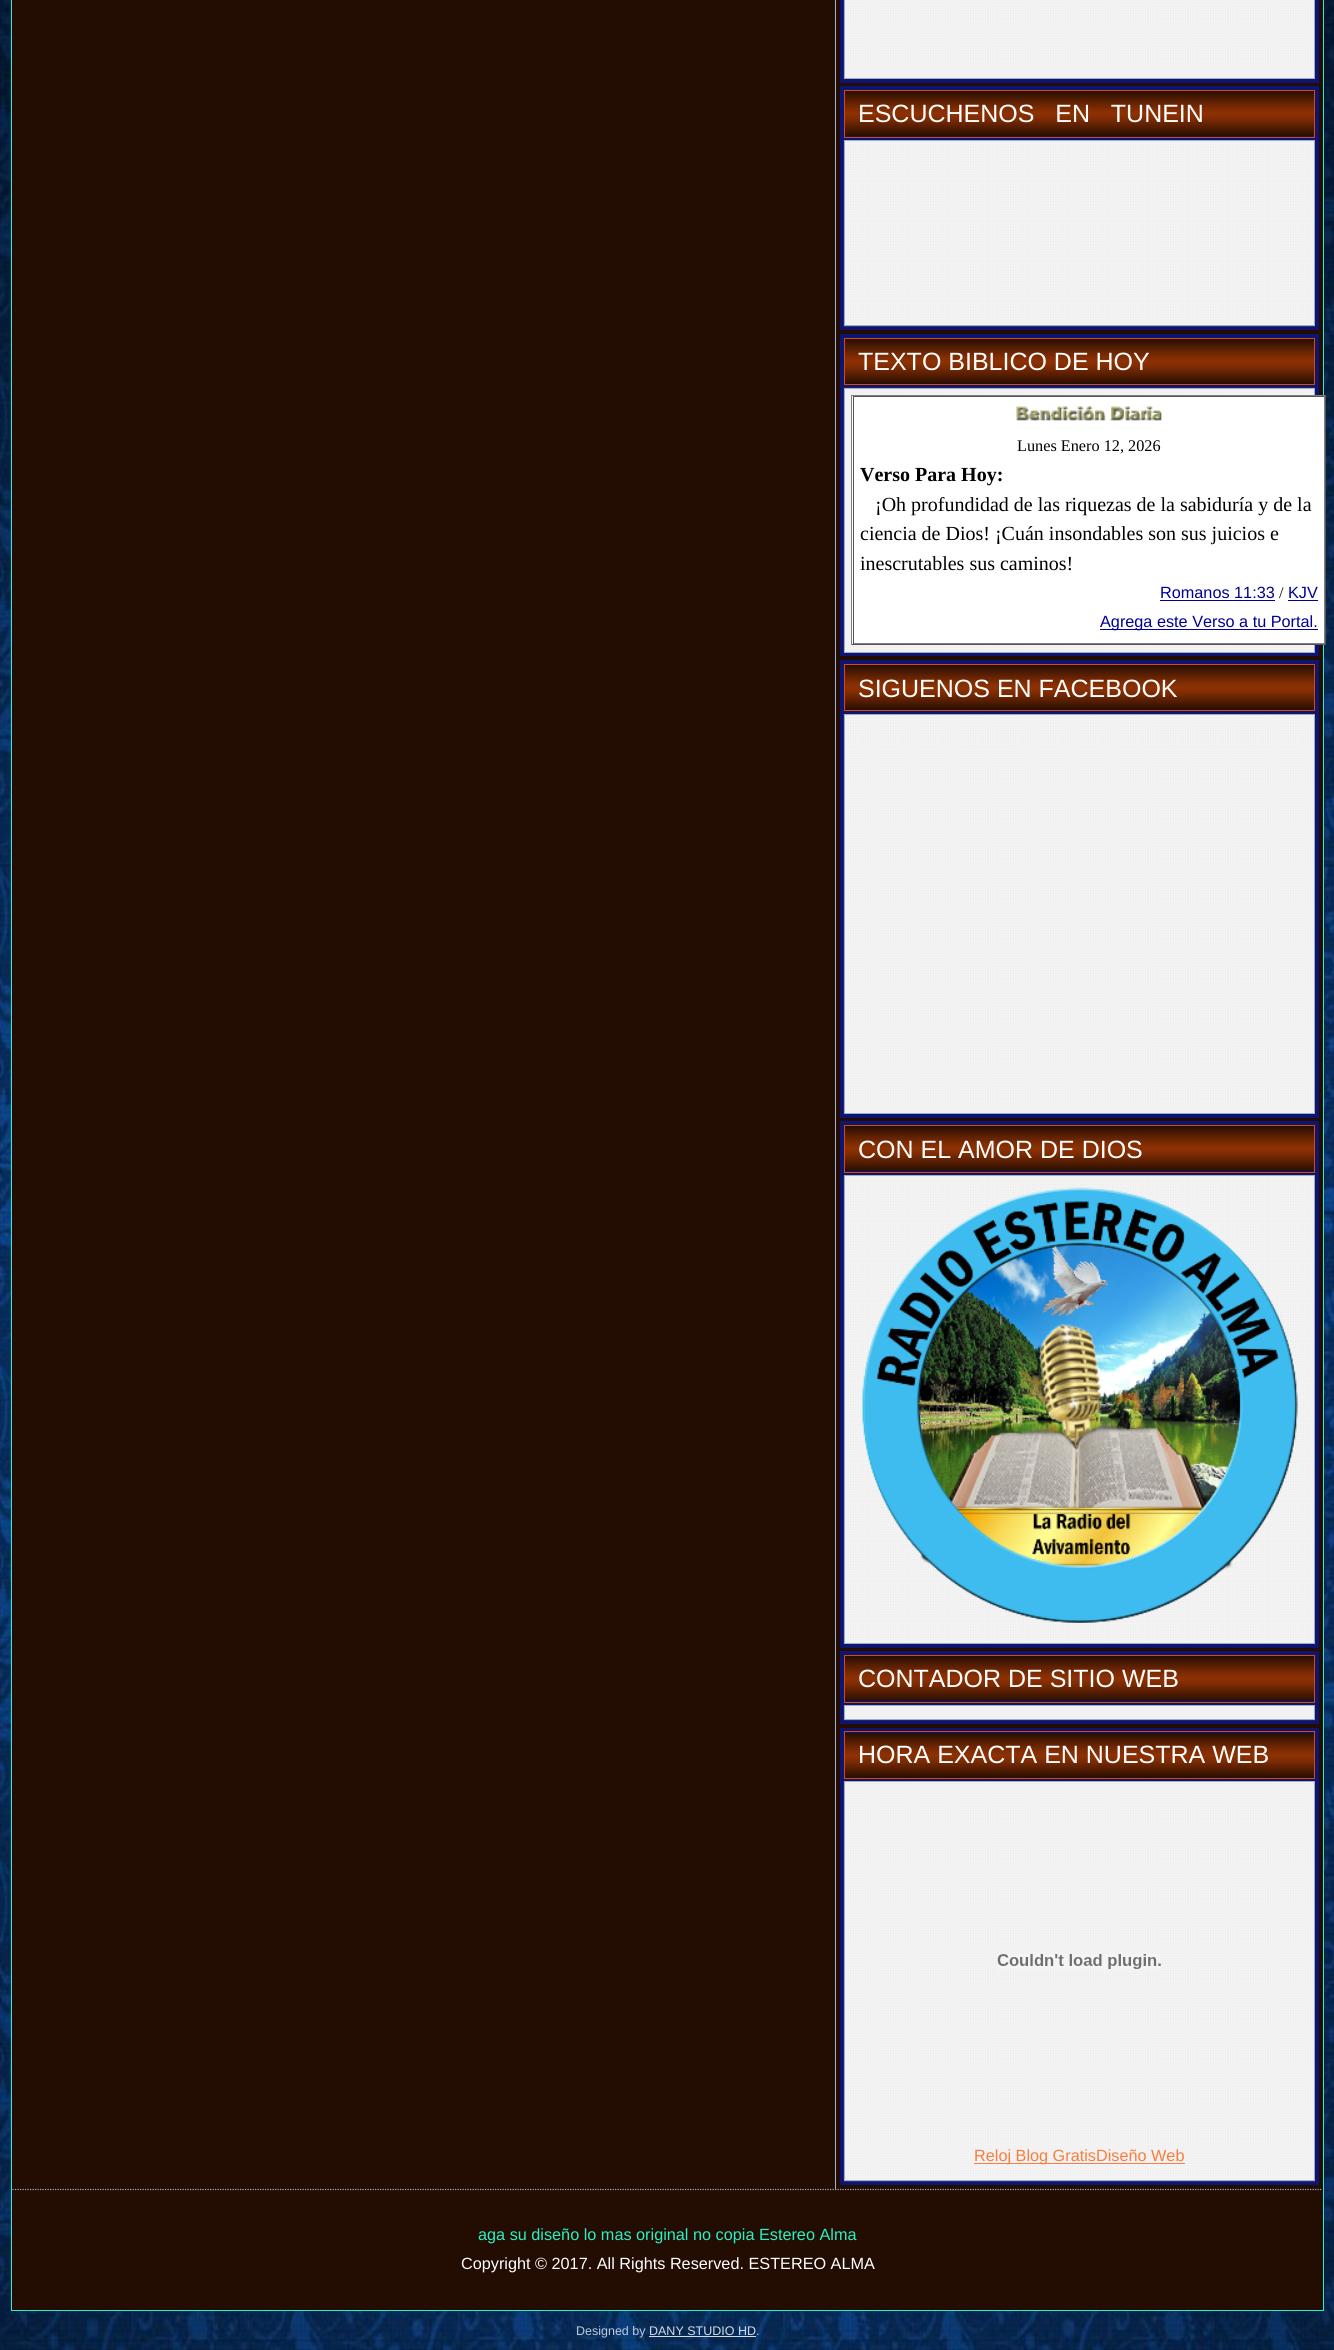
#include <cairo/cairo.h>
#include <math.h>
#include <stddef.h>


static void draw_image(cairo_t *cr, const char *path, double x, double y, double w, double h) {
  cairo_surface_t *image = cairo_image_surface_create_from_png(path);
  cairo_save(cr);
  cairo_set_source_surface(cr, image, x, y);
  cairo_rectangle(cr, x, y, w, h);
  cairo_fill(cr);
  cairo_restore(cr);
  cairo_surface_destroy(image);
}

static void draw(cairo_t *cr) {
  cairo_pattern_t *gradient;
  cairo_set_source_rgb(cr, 1, 1, 1);
  cairo_paint(cr);
  draw_image(cr, "images/1.png", 0, 0, 1334, 2350);
  cairo_set_source_rgb(cr, 35 / 255.0, 12 / 255.0, 1 / 255.0);
  cairo_rectangle(cr, 11.5, -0.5, 1312, 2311);
  cairo_fill_preserve(cr);
  cairo_set_source_rgb(cr, 39 / 255.0, 241 / 255.0, 197 / 255.0);
  cairo_set_line_width(cr, 1);
  cairo_stroke(cr);
  cairo_set_source_rgb(cr, 163 / 255.0, 180 / 255.0, 200 / 255.0);
  cairo_rectangle(cr, 835, 0, 1, 2189);
  cairo_fill(cr);
  cairo_set_source_rgb(cr, 13 / 255.0, 20 / 255.0, 114 / 255.0);
  cairo_rectangle(cr, 840, 0, 479, 83);
  cairo_fill(cr);
  cairo_set_source_rgb(cr, 1, 1, 1);
  cairo_rectangle(cr, 845, 0, 469, 78);
  cairo_fill(cr);
  draw_image(cr, "images/2.png", 843, 0, 471, 79);
  cairo_rectangle(cr, 844.5, -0.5, 470, 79);
  cairo_set_source_rgb(cr, 156 / 255.0, 175 / 255.0, 196 / 255.0);
  cairo_stroke(cr);
  cairo_set_source_rgb(cr, 13 / 255.0, 20 / 255.0, 114 / 255.0);
  cairo_rectangle(cr, 840, 86, 479, 244);
  cairo_fill(cr);
  gradient = cairo_pattern_create_linear(1079, 91, 1079, 136);
  cairo_pattern_add_color_stop_rgba(gradient, 0, 40 / 255.0, 14 / 255.0, 1 / 255.0, 1);
  cairo_pattern_add_color_stop_rgba(gradient, 0.4, 130 / 255.0, 45 / 255.0, 3 / 255.0, 1);
  cairo_pattern_add_color_stop_rgba(gradient, 0.5, 140 / 255.0, 49 / 255.0, 3 / 255.0, 1);
  cairo_pattern_add_color_stop_rgba(gradient, 0.6, 130 / 255.0, 45 / 255.0, 3 / 255.0, 1);
  cairo_pattern_add_color_stop_rgba(gradient, 1, 40 / 255.0, 14 / 255.0, 1 / 255.0, 1);
  cairo_set_source(cr, gradient);
  cairo_pattern_destroy(gradient);
  cairo_rectangle(cr, 845, 91, 469, 45);
  cairo_fill(cr);
  cairo_rectangle(cr, 844.5, 90.5, 470, 47);
  cairo_set_source_rgb(cr, 215 / 255.0, 75 / 255.0, 4 / 255.0);
  cairo_stroke(cr);
  cairo_set_source_rgb(cr, 1, 1, 1);
  cairo_rectangle(cr, 845, 141, 469, 184);
  cairo_fill(cr);
  draw_image(cr, "images/3.png", 843, 140, 472, 187);
  cairo_rectangle(cr, 844.5, 140.5, 470, 185);
  cairo_set_source_rgb(cr, 156 / 255.0, 175 / 255.0, 196 / 255.0);
  cairo_stroke(cr);
  cairo_set_source_rgb(cr, 13 / 255.0, 20 / 255.0, 114 / 255.0);
  cairo_rectangle(cr, 840, 334, 479, 322);
  cairo_fill(cr);
  gradient = cairo_pattern_create_linear(1079, 339, 1079, 384);
  cairo_pattern_add_color_stop_rgba(gradient, 0, 40 / 255.0, 14 / 255.0, 1 / 255.0, 1);
  cairo_pattern_add_color_stop_rgba(gradient, 0.4, 130 / 255.0, 45 / 255.0, 3 / 255.0, 1);
  cairo_pattern_add_color_stop_rgba(gradient, 0.5, 140 / 255.0, 49 / 255.0, 3 / 255.0, 1);
  cairo_pattern_add_color_stop_rgba(gradient, 0.6, 130 / 255.0, 45 / 255.0, 3 / 255.0, 1);
  cairo_pattern_add_color_stop_rgba(gradient, 1, 40 / 255.0, 14 / 255.0, 1 / 255.0, 1);
  cairo_set_source(cr, gradient);
  cairo_pattern_destroy(gradient);
  cairo_rectangle(cr, 845, 339, 469, 45);
  cairo_fill(cr);
  cairo_rectangle(cr, 844.5, 338.5, 470, 46);
  cairo_set_source_rgb(cr, 215 / 255.0, 75 / 255.0, 4 / 255.0);
  cairo_stroke(cr);
  cairo_set_source_rgb(cr, 1, 1, 1);
  cairo_rectangle(cr, 845, 389, 469, 263);
  cairo_fill(cr);
  draw_image(cr, "images/4.png", 843, 387, 472, 266);
  cairo_rectangle(cr, 844.5, 388.5, 470, 264);
  cairo_set_source_rgb(cr, 156 / 255.0, 175 / 255.0, 196 / 255.0);
  cairo_stroke(cr);
  cairo_set_source_rgb(cr, 1, 1, 1);
  cairo_rectangle(cr, 852, 396, 472, 248);
  cairo_fill(cr);
  cairo_set_source_rgb(cr, 128 / 255.0, 128 / 255.0, 128 / 255.0);
  cairo_rectangle(cr, 851, 395, 475, 1);
  cairo_fill(cr);
  cairo_set_source_rgb(cr, 85 / 255.0, 85 / 255.0, 85 / 255.0);
  cairo_rectangle(cr, 1325, 395, 1, 250);
  cairo_fill(cr);
  cairo_rectangle(cr, 851, 644, 475, 1);
  cairo_fill(cr);
  cairo_set_source_rgb(cr, 128 / 255.0, 128 / 255.0, 128 / 255.0);
  cairo_rectangle(cr, 851, 395, 1, 250);
  cairo_fill(cr);
  cairo_set_source_rgb(cr, 85 / 255.0, 85 / 255.0, 85 / 255.0);
  cairo_rectangle(cr, 853, 396, 472, 1);
  cairo_fill(cr);
  cairo_set_source_rgb(cr, 128 / 255.0, 128 / 255.0, 128 / 255.0);
  cairo_rectangle(cr, 1324, 396, 1, 248);
  cairo_fill(cr);
  cairo_rectangle(cr, 853, 643, 472, 1);
  cairo_fill(cr);
  cairo_set_source_rgb(cr, 85 / 255.0, 85 / 255.0, 85 / 255.0);
  cairo_rectangle(cr, 853, 396, 1, 248);
  cairo_fill(cr);
  draw_image(cr, "images/5.png", 1016, 406, 146, 15);
  cairo_set_source_rgb(cr, 0, 0, 153 / 255.0);
  cairo_rectangle(cr, 1160, 600, 115, 1);
  cairo_fill(cr);
  cairo_rectangle(cr, 1288, 600, 30, 1);
  cairo_fill(cr);
  cairo_rectangle(cr, 1100, 629, 218, 1);
  cairo_fill(cr);
  cairo_set_source_rgb(cr, 13 / 255.0, 20 / 255.0, 114 / 255.0);
  cairo_rectangle(cr, 840, 660, 479, 458);
  cairo_fill(cr);
  gradient = cairo_pattern_create_linear(1079, 665, 1079, 710);
  cairo_pattern_add_color_stop_rgba(gradient, 0, 40 / 255.0, 14 / 255.0, 1 / 255.0, 1);
  cairo_pattern_add_color_stop_rgba(gradient, 0.4, 130 / 255.0, 45 / 255.0, 3 / 255.0, 1);
  cairo_pattern_add_color_stop_rgba(gradient, 0.5, 140 / 255.0, 49 / 255.0, 3 / 255.0, 1);
  cairo_pattern_add_color_stop_rgba(gradient, 0.6, 130 / 255.0, 45 / 255.0, 3 / 255.0, 1);
  cairo_pattern_add_color_stop_rgba(gradient, 1, 40 / 255.0, 14 / 255.0, 1 / 255.0, 1);
  cairo_set_source(cr, gradient);
  cairo_pattern_destroy(gradient);
  cairo_rectangle(cr, 845, 665, 469, 45);
  cairo_fill(cr);
  cairo_rectangle(cr, 844.5, 664.5, 470, 46);
  cairo_set_source_rgb(cr, 215 / 255.0, 75 / 255.0, 4 / 255.0);
  cairo_stroke(cr);
  cairo_set_source_rgb(cr, 1, 1, 1);
  cairo_rectangle(cr, 845, 715, 469, 398);
  cairo_fill(cr);
  draw_image(cr, "images/6.png", 843, 714, 471, 400);
  cairo_rectangle(cr, 844.5, 714.5, 470, 399);
  cairo_set_source_rgb(cr, 156 / 255.0, 175 / 255.0, 196 / 255.0);
  cairo_stroke(cr);
  cairo_set_source_rgb(cr, 13 / 255.0, 20 / 255.0, 114 / 255.0);
  cairo_rectangle(cr, 840, 1121, 479, 527);
  cairo_fill(cr);
  gradient = cairo_pattern_create_linear(1079, 1126, 1079, 1171);
  cairo_pattern_add_color_stop_rgba(gradient, 0, 40 / 255.0, 14 / 255.0, 1 / 255.0, 1);
  cairo_pattern_add_color_stop_rgba(gradient, 0.4, 130 / 255.0, 45 / 255.0, 3 / 255.0, 1);
  cairo_pattern_add_color_stop_rgba(gradient, 0.5, 140 / 255.0, 49 / 255.0, 3 / 255.0, 1);
  cairo_pattern_add_color_stop_rgba(gradient, 0.6, 130 / 255.0, 45 / 255.0, 3 / 255.0, 1);
  cairo_pattern_add_color_stop_rgba(gradient, 1, 40 / 255.0, 14 / 255.0, 1 / 255.0, 1);
  cairo_set_source(cr, gradient);
  cairo_pattern_destroy(gradient);
  cairo_rectangle(cr, 845, 1126, 469, 45);
  cairo_fill(cr);
  cairo_rectangle(cr, 844.5, 1125.5, 470, 47);
  cairo_set_source_rgb(cr, 215 / 255.0, 75 / 255.0, 4 / 255.0);
  cairo_stroke(cr);
  cairo_set_source_rgb(cr, 1, 1, 1);
  cairo_rectangle(cr, 845, 1176, 469, 467);
  cairo_fill(cr);
  draw_image(cr, "images/7.png", 843, 1175, 471, 469);
  cairo_rectangle(cr, 844.5, 1175.5, 470, 468);
  cairo_set_source_rgb(cr, 156 / 255.0, 175 / 255.0, 196 / 255.0);
  cairo_stroke(cr);
  draw_image(cr, "images/8.png", 862, 1187, 436, 436);
  cairo_set_source_rgb(cr, 13 / 255.0, 20 / 255.0, 114 / 255.0);
  cairo_rectangle(cr, 840, 1651, 479, 73);
  cairo_fill(cr);
  gradient = cairo_pattern_create_linear(1079, 1656, 1079, 1701);
  cairo_pattern_add_color_stop_rgba(gradient, 0, 40 / 255.0, 14 / 255.0, 1 / 255.0, 1);
  cairo_pattern_add_color_stop_rgba(gradient, 0.4, 130 / 255.0, 45 / 255.0, 3 / 255.0, 1);
  cairo_pattern_add_color_stop_rgba(gradient, 0.5, 140 / 255.0, 49 / 255.0, 3 / 255.0, 1);
  cairo_pattern_add_color_stop_rgba(gradient, 0.6, 130 / 255.0, 45 / 255.0, 3 / 255.0, 1);
  cairo_pattern_add_color_stop_rgba(gradient, 1, 40 / 255.0, 14 / 255.0, 1 / 255.0, 1);
  cairo_set_source(cr, gradient);
  cairo_pattern_destroy(gradient);
  cairo_rectangle(cr, 845, 1656, 469, 45);
  cairo_fill(cr);
  cairo_rectangle(cr, 844.5, 1655.5, 470, 47);
  cairo_set_source_rgb(cr, 215 / 255.0, 75 / 255.0, 4 / 255.0);
  cairo_stroke(cr);
  cairo_set_source_rgb(cr, 1, 1, 1);
  cairo_rectangle(cr, 845, 1706, 469, 13);
  cairo_fill(cr);
  draw_image(cr, "images/9.png", 843, 1705, 472, 16);
  cairo_rectangle(cr, 844.5, 1705.5, 470, 14);
  cairo_set_source_rgb(cr, 156 / 255.0, 175 / 255.0, 196 / 255.0);
  cairo_stroke(cr);
  cairo_set_source_rgb(cr, 13 / 255.0, 20 / 255.0, 114 / 255.0);
  cairo_rectangle(cr, 840, 1728, 479, 457);
  cairo_fill(cr);
  gradient = cairo_pattern_create_linear(1079, 1733, 1079, 1778);
  cairo_pattern_add_color_stop_rgba(gradient, 0, 40 / 255.0, 14 / 255.0, 1 / 255.0, 1);
  cairo_pattern_add_color_stop_rgba(gradient, 0.4, 130 / 255.0, 45 / 255.0, 3 / 255.0, 1);
  cairo_pattern_add_color_stop_rgba(gradient, 0.5, 140 / 255.0, 49 / 255.0, 3 / 255.0, 1);
  cairo_pattern_add_color_stop_rgba(gradient, 0.6, 130 / 255.0, 45 / 255.0, 3 / 255.0, 1);
  cairo_pattern_add_color_stop_rgba(gradient, 1, 40 / 255.0, 14 / 255.0, 1 / 255.0, 1);
  cairo_set_source(cr, gradient);
  cairo_pattern_destroy(gradient);
  cairo_rectangle(cr, 845, 1733, 469, 45);
  cairo_fill(cr);
  cairo_rectangle(cr, 844.5, 1731.5, 470, 47);
  cairo_set_source_rgb(cr, 215 / 255.0, 75 / 255.0, 4 / 255.0);
  cairo_stroke(cr);
  cairo_set_source_rgb(cr, 1, 1, 1);
  cairo_rectangle(cr, 845, 1782, 469, 398);
  cairo_fill(cr);
  draw_image(cr, "images/10.png", 843, 1781, 472, 401);
  cairo_rectangle(cr, 844.5, 1781.5, 470, 399);
  cairo_set_source_rgb(cr, 156 / 255.0, 175 / 255.0, 196 / 255.0);
  cairo_stroke(cr);
  draw_image(cr, "images/11.png", 997, 1954, 164, 15);
  cairo_set_source_rgb(cr, 251 / 255.0, 124 / 255.0, 60 / 255.0);
  cairo_rectangle(cr, 974, 2163, 211, 1);
  cairo_fill(cr);
  cairo_new_path(cr);
  cairo_move_to(cr, 12.5, 2189.5);
  cairo_line_to(cr, 1322.5, 2189.5);
  cairo_set_source_rgb(cr, 156 / 255.0, 175 / 255.0, 196 / 255.0);
  cairo_set_line_width(cr, 1.2);
  cairo_set_dash(cr, (double[]){1.25, 1.25}, 2, 0);
  cairo_stroke(cr);
  cairo_set_source_rgb(cr, 214 / 255.0, 219 / 255.0, 225 / 255.0);
  cairo_rectangle(cr, 649, 2336, 107, 1);
  cairo_fill(cr);
  cairo_select_font_face(cr, "Liberation Sans", CAIRO_FONT_SLANT_NORMAL, CAIRO_FONT_WEIGHT_NORMAL);
  cairo_set_font_size(cr, 25);
  cairo_set_source_rgb(cr, 1, 1, 1);
  cairo_move_to(cr, 858, 122);
  cairo_show_text(cr, "ESCUCHENOS   EN   TUNEIN");
  cairo_move_to(cr, 858, 370);
  cairo_show_text(cr, "TEXTO BIBLICO DE HOY");
  cairo_select_font_face(cr, "Liberation Serif", CAIRO_FONT_SLANT_NORMAL, CAIRO_FONT_WEIGHT_NORMAL);
  cairo_set_font_size(cr, 16.25);
  cairo_set_source_rgb(cr, 0, 0, 0);
  cairo_move_to(cr, 1017, 451);
  cairo_show_text(cr, "Lunes Enero 12, 2026");
  cairo_select_font_face(cr, "Liberation Serif", CAIRO_FONT_SLANT_NORMAL, CAIRO_FONT_WEIGHT_BOLD);
  cairo_set_font_size(cr, 20);
  cairo_move_to(cr, 860, 481);
  cairo_show_text(cr, "Verso Para Hoy:");
  cairo_select_font_face(cr, "Liberation Serif", CAIRO_FONT_SLANT_NORMAL, CAIRO_FONT_WEIGHT_NORMAL);
  cairo_move_to(cr, 875, 511);
  cairo_show_text(cr, "¡Oh profundidad de las riquezas de la sabiduría y de la");
  cairo_move_to(cr, 860, 540);
  cairo_show_text(cr, "ciencia de Dios! ¡Cuán insondables son sus juicios e");
  cairo_move_to(cr, 860, 570);
  cairo_show_text(cr, "inescrutables sus caminos!");
  cairo_select_font_face(cr, "Liberation Sans", CAIRO_FONT_SLANT_NORMAL, CAIRO_FONT_WEIGHT_NORMAL);
  cairo_set_font_size(cr, 16.25);
  cairo_set_source_rgb(cr, 0, 0, 153 / 255.0);
  cairo_move_to(cr, 1160, 598);
  cairo_show_text(cr, "Romanos 11:33");
  cairo_select_font_face(cr, "Liberation Serif", CAIRO_FONT_SLANT_NORMAL, CAIRO_FONT_WEIGHT_NORMAL);
  cairo_set_source_rgb(cr, 0, 0, 0);
  cairo_move_to(cr, 1279, 598);
  cairo_show_text(cr, "/");
  cairo_select_font_face(cr, "Liberation Sans", CAIRO_FONT_SLANT_NORMAL, CAIRO_FONT_WEIGHT_NORMAL);
  cairo_set_source_rgb(cr, 0, 0, 153 / 255.0);
  cairo_move_to(cr, 1288, 598);
  cairo_show_text(cr, "KJV");
  cairo_move_to(cr, 1100, 627);
  cairo_show_text(cr, "Agrega este Verso a tu Portal.");
  cairo_set_font_size(cr, 25);
  cairo_set_source_rgb(cr, 1, 1, 1);
  cairo_move_to(cr, 858, 697);
  cairo_show_text(cr, "SIGUENOS EN FACEBOOK");
  cairo_move_to(cr, 858, 1158);
  cairo_show_text(cr, "CON EL AMOR DE DIOS");
  cairo_move_to(cr, 858, 1687);
  cairo_show_text(cr, "CONTADOR DE SITIO WEB");
  cairo_move_to(cr, 858, 1763);
  cairo_show_text(cr, "HORA EXACTA EN NUESTRA WEB");
  cairo_set_font_size(cr, 16.25);
  cairo_set_source_rgb(cr, 251 / 255.0, 124 / 255.0, 60 / 255.0);
  cairo_move_to(cr, 974, 2161);
  cairo_show_text(cr, "Reloj Blog GratisDiseño Web");
  cairo_set_source_rgb(cr, 39 / 255.0, 241 / 255.0, 197 / 255.0);
  cairo_move_to(cr, 478, 2240);
  cairo_show_text(cr, "aga su diseño lo mas original no copia Estereo Alma");
  cairo_set_source_rgb(cr, 1, 1, 1);
  cairo_move_to(cr, 461, 2269);
  cairo_show_text(cr, "Copyright © 2017. All Rights Reserved. ESTEREO ALMA");
  cairo_set_font_size(cr, 12.5);
  cairo_set_source_rgb(cr, 191 / 255.0, 204 / 255.0, 217 / 255.0);
  cairo_move_to(cr, 576, 2335);
  cairo_show_text(cr, "Designed by");
  cairo_set_source_rgb(cr, 214 / 255.0, 219 / 255.0, 225 / 255.0);
  cairo_move_to(cr, 649, 2335);
  cairo_show_text(cr, "DANY STUDIO HD");
  cairo_set_source_rgb(cr, 191 / 255.0, 204 / 255.0, 217 / 255.0);
  cairo_move_to(cr, 756, 2335);
  cairo_show_text(cr, ".");
}

int main(void) {
  cairo_surface_t *surface = cairo_image_surface_create(CAIRO_FORMAT_RGB24, 1334, 2350);
  cairo_t *cr = cairo_create(surface);
  cairo_font_options_t *options = cairo_font_options_create();
  cairo_font_options_set_hint_metrics(options, CAIRO_HINT_METRICS_OFF);
  cairo_font_options_set_hint_style(options, CAIRO_HINT_STYLE_NONE);
  cairo_set_font_options(cr, options);
  cairo_set_miter_limit(cr, 4);
  draw(cr);
  cairo_surface_write_to_png(surface, "out.png");
  cairo_font_options_destroy(options);
  cairo_destroy(cr);
  cairo_surface_destroy(surface);
  return 0;
}
